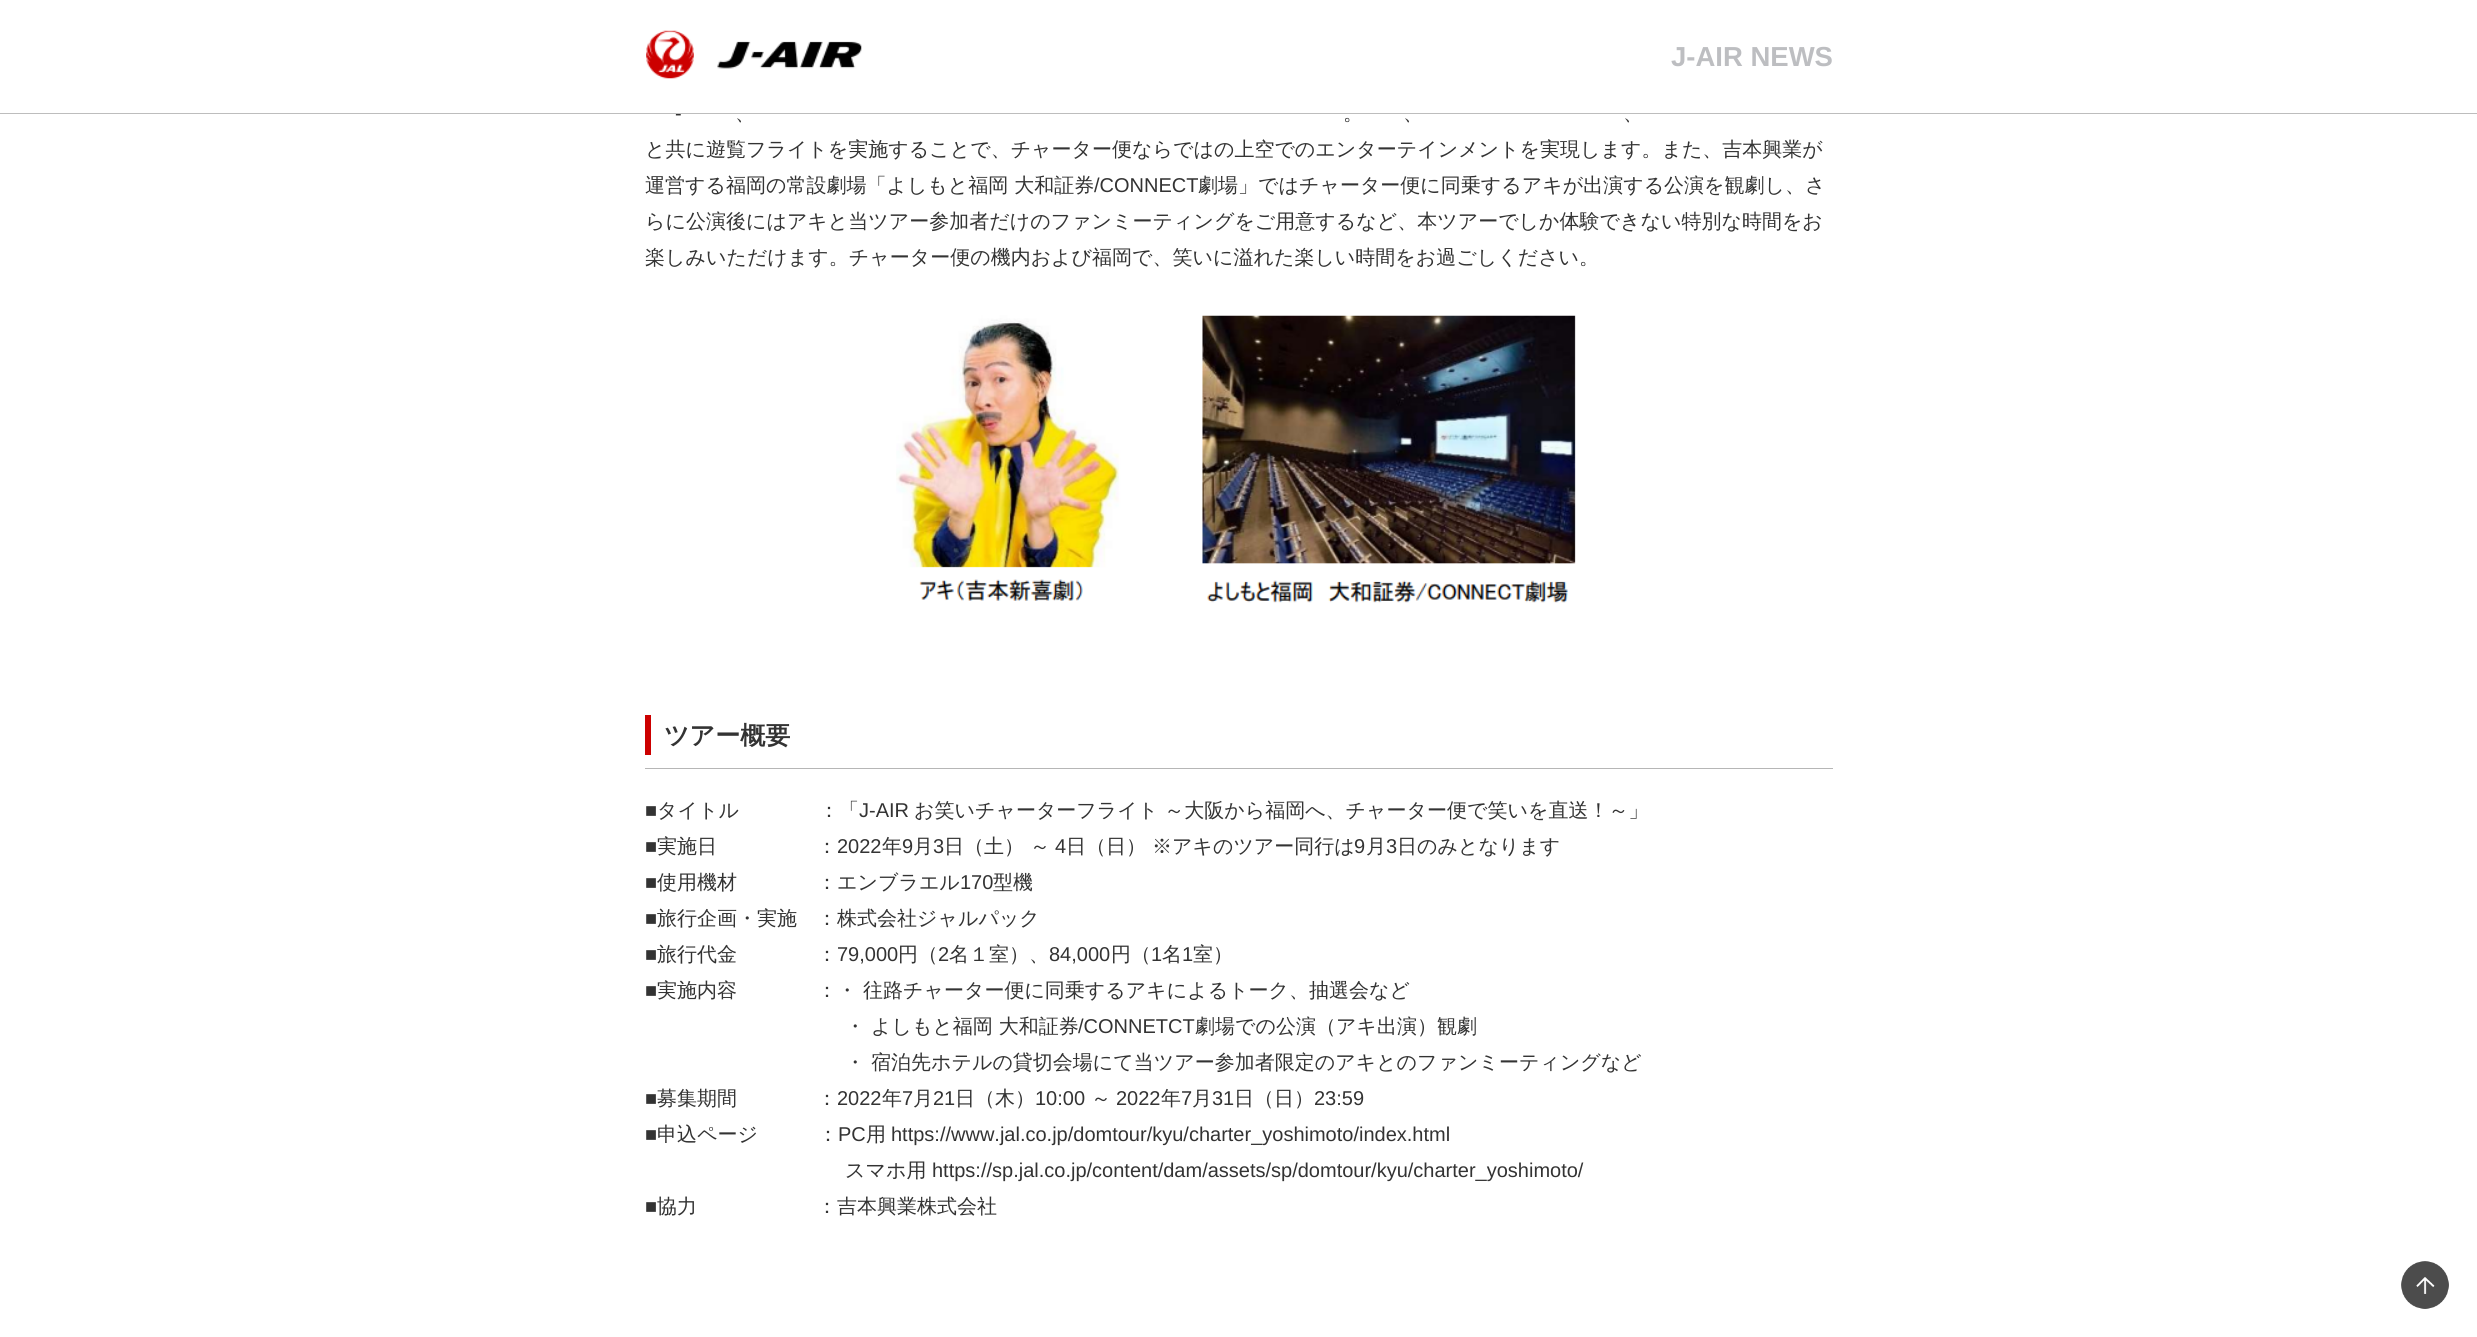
#include <cairo/cairo.h>
#include <math.h>
#include <stddef.h>


static void draw_image(cairo_t *cr, const char *path, double x, double y, double w, double h) {
  cairo_surface_t *image = cairo_image_surface_create_from_png(path);
  cairo_save(cr);
  cairo_set_source_surface(cr, image, x, y);
  cairo_rectangle(cr, x, y, w, h);
  cairo_fill(cr);
  cairo_restore(cr);
  cairo_surface_destroy(image);
}

static void draw(cairo_t *cr) {
  cairo_set_source_rgb(cr, 1, 1, 1);
  cairo_paint(cr);
  draw_image(cr, "images/1.png", 646, 30, 216, 49);
  draw_image(cr, "images/2.png", 896, 315, 680, 288);
  cairo_set_source_rgb(cr, 182 / 255.0, 182 / 255.0, 182 / 255.0);
  cairo_rectangle(cr, 645, 768, 1188, 1);
  cairo_fill(cr);
  cairo_set_source_rgb(cr, 204 / 255.0, 0, 0);
  cairo_rectangle(cr, 645, 715, 6, 40);
  cairo_fill(cr);
  draw_image(cr, "images/3.png", 2401, 1261, 48, 48);
  cairo_select_font_face(cr, "Liberation Sans", CAIRO_FONT_SLANT_NORMAL, CAIRO_FONT_WEIGHT_BOLD);
  cairo_set_font_size(cr, 27.5);
  cairo_set_source_rgb(cr, 189 / 255.0, 190 / 255.0, 193 / 255.0);
  cairo_move_to(cr, 1671, 66);
  cairo_show_text(cr, "J-AIR NEWS");
  cairo_select_font_face(cr, "Liberation Sans", CAIRO_FONT_SLANT_NORMAL, CAIRO_FONT_WEIGHT_NORMAL);
  cairo_set_font_size(cr, 20);
  cairo_set_source_rgb(cr, 51 / 255.0, 51 / 255.0, 51 / 255.0);
  cairo_move_to(cr, 675, 120);
  cairo_show_text(cr, "-");
  cairo_set_source_rgb(cr, 189 / 255.0, 189 / 255.0, 189 / 255.0);
  cairo_rectangle(cr, 0, 113, 2477, 1);
  cairo_fill(cr);
  cairo_select_font_face(cr, "WenQuanYi Zen Hei Medium", CAIRO_FONT_SLANT_NORMAL, CAIRO_FONT_WEIGHT_NORMAL);
  cairo_set_source_rgb(cr, 51 / 255.0, 51 / 255.0, 51 / 255.0);
  cairo_move_to(cr, 735, 120);
  cairo_show_text(cr, "、");
  cairo_move_to(cr, 1343, 120);
  cairo_show_text(cr, "。");
  cairo_move_to(cr, 1403, 120);
  cairo_show_text(cr, "、");
  cairo_move_to(cr, 1623, 120);
  cairo_show_text(cr, "、");
  cairo_move_to(cr, 645, 156);
  cairo_show_text(cr, "と共に遊覧フライトを実施することで、チャーター便ならではの上空でのエンターテインメントを実現します。また、吉本興業が");
  cairo_move_to(cr, 645, 192);
  cairo_show_text(cr, "運営する福岡の常設劇場「よしもと福岡 大和証券");
  cairo_select_font_face(cr, "Liberation Sans", CAIRO_FONT_SLANT_NORMAL, CAIRO_FONT_WEIGHT_NORMAL);
  cairo_move_to(cr, 1094, 192);
  cairo_show_text(cr, "/CONNECT");
  cairo_select_font_face(cr, "WenQuanYi Zen Hei Medium", CAIRO_FONT_SLANT_NORMAL, CAIRO_FONT_WEIGHT_NORMAL);
  cairo_move_to(cr, 1198, 192);
  cairo_show_text(cr, "劇場」ではチャーター便に同乗するアキが出演する公演を観劇し、さ");
  cairo_move_to(cr, 645, 228);
  cairo_show_text(cr, "らに公演後にはアキと当ツアー参加者だけのファンミーティングをご用意するなど、本ツアーでしか体験できない特別な時間をお");
  cairo_move_to(cr, 645, 264);
  cairo_show_text(cr, "楽しみいただけます。チャーター便の機内および福岡で、笑いに溢れた楽しい時間をお過ごしください。");
  cairo_select_font_face(cr, "WenQuanYi Zen Hei", CAIRO_FONT_SLANT_NORMAL, CAIRO_FONT_WEIGHT_BOLD);
  cairo_set_font_size(cr, 25);
  cairo_move_to(cr, 664, 744);
  cairo_show_text(cr, "ツアー概要");
  cairo_select_font_face(cr, "Liberation Sans", CAIRO_FONT_SLANT_NORMAL, CAIRO_FONT_WEIGHT_NORMAL);
  cairo_set_font_size(cr, 20);
  cairo_move_to(cr, 645, 817);
  cairo_show_text(cr, "■");
  cairo_select_font_face(cr, "WenQuanYi Zen Hei Medium", CAIRO_FONT_SLANT_NORMAL, CAIRO_FONT_WEIGHT_NORMAL);
  cairo_move_to(cr, 657, 817);
  cairo_show_text(cr, "タイトル　　　　：「");
  cairo_select_font_face(cr, "Liberation Sans", CAIRO_FONT_SLANT_NORMAL, CAIRO_FONT_WEIGHT_NORMAL);
  cairo_move_to(cr, 859, 817);
  cairo_show_text(cr, "J-AIR");
  cairo_select_font_face(cr, "WenQuanYi Zen Hei Medium", CAIRO_FONT_SLANT_NORMAL, CAIRO_FONT_WEIGHT_NORMAL);
  cairo_move_to(cr, 914, 817);
  cairo_show_text(cr, "お笑いチャーターフライト ～大阪から福岡へ、チャーター便で笑いを直送！～」");
  cairo_select_font_face(cr, "Liberation Sans", CAIRO_FONT_SLANT_NORMAL, CAIRO_FONT_WEIGHT_NORMAL);
  cairo_move_to(cr, 645, 853);
  cairo_show_text(cr, "■");
  cairo_select_font_face(cr, "WenQuanYi Zen Hei Medium", CAIRO_FONT_SLANT_NORMAL, CAIRO_FONT_WEIGHT_NORMAL);
  cairo_move_to(cr, 657, 853);
  cairo_show_text(cr, "実施日　　　　　：");
  cairo_select_font_face(cr, "Liberation Sans", CAIRO_FONT_SLANT_NORMAL, CAIRO_FONT_WEIGHT_NORMAL);
  cairo_move_to(cr, 837, 853);
  cairo_show_text(cr, "2022");
  cairo_select_font_face(cr, "WenQuanYi Zen Hei Medium", CAIRO_FONT_SLANT_NORMAL, CAIRO_FONT_WEIGHT_NORMAL);
  cairo_move_to(cr, 882, 853);
  cairo_show_text(cr, "年");
  cairo_select_font_face(cr, "Liberation Sans", CAIRO_FONT_SLANT_NORMAL, CAIRO_FONT_WEIGHT_NORMAL);
  cairo_move_to(cr, 902, 853);
  cairo_show_text(cr, "9");
  cairo_select_font_face(cr, "WenQuanYi Zen Hei Medium", CAIRO_FONT_SLANT_NORMAL, CAIRO_FONT_WEIGHT_NORMAL);
  cairo_move_to(cr, 913, 853);
  cairo_show_text(cr, "月");
  cairo_select_font_face(cr, "Liberation Sans", CAIRO_FONT_SLANT_NORMAL, CAIRO_FONT_WEIGHT_NORMAL);
  cairo_move_to(cr, 933, 853);
  cairo_show_text(cr, "3");
  cairo_select_font_face(cr, "WenQuanYi Zen Hei Medium", CAIRO_FONT_SLANT_NORMAL, CAIRO_FONT_WEIGHT_NORMAL);
  cairo_move_to(cr, 944, 853);
  cairo_show_text(cr, "日（土） ～");
  cairo_select_font_face(cr, "Liberation Sans", CAIRO_FONT_SLANT_NORMAL, CAIRO_FONT_WEIGHT_NORMAL);
  cairo_move_to(cr, 1055, 853);
  cairo_show_text(cr, "4");
  cairo_select_font_face(cr, "WenQuanYi Zen Hei Medium", CAIRO_FONT_SLANT_NORMAL, CAIRO_FONT_WEIGHT_NORMAL);
  cairo_move_to(cr, 1066, 853);
  cairo_show_text(cr, "日（日） ※アキのツアー同行は");
  cairo_select_font_face(cr, "Liberation Sans", CAIRO_FONT_SLANT_NORMAL, CAIRO_FONT_WEIGHT_NORMAL);
  cairo_move_to(cr, 1354, 853);
  cairo_show_text(cr, "9");
  cairo_select_font_face(cr, "WenQuanYi Zen Hei Medium", CAIRO_FONT_SLANT_NORMAL, CAIRO_FONT_WEIGHT_NORMAL);
  cairo_move_to(cr, 1366, 853);
  cairo_show_text(cr, "月");
  cairo_select_font_face(cr, "Liberation Sans", CAIRO_FONT_SLANT_NORMAL, CAIRO_FONT_WEIGHT_NORMAL);
  cairo_move_to(cr, 1386, 853);
  cairo_show_text(cr, "3");
  cairo_select_font_face(cr, "WenQuanYi Zen Hei Medium", CAIRO_FONT_SLANT_NORMAL, CAIRO_FONT_WEIGHT_NORMAL);
  cairo_move_to(cr, 1397, 853);
  cairo_show_text(cr, "日のみとなります");
  cairo_select_font_face(cr, "Liberation Sans", CAIRO_FONT_SLANT_NORMAL, CAIRO_FONT_WEIGHT_NORMAL);
  cairo_move_to(cr, 645, 889);
  cairo_show_text(cr, "■");
  cairo_select_font_face(cr, "WenQuanYi Zen Hei Medium", CAIRO_FONT_SLANT_NORMAL, CAIRO_FONT_WEIGHT_NORMAL);
  cairo_move_to(cr, 657, 889);
  cairo_show_text(cr, "使用機材　　　　：エンブラエル");
  cairo_select_font_face(cr, "Liberation Sans", CAIRO_FONT_SLANT_NORMAL, CAIRO_FONT_WEIGHT_NORMAL);
  cairo_move_to(cr, 960, 889);
  cairo_show_text(cr, "170");
  cairo_select_font_face(cr, "WenQuanYi Zen Hei Medium", CAIRO_FONT_SLANT_NORMAL, CAIRO_FONT_WEIGHT_NORMAL);
  cairo_move_to(cr, 993, 889);
  cairo_show_text(cr, "型機");
  cairo_select_font_face(cr, "Liberation Sans", CAIRO_FONT_SLANT_NORMAL, CAIRO_FONT_WEIGHT_NORMAL);
  cairo_move_to(cr, 645, 925);
  cairo_show_text(cr, "■");
  cairo_select_font_face(cr, "WenQuanYi Zen Hei Medium", CAIRO_FONT_SLANT_NORMAL, CAIRO_FONT_WEIGHT_NORMAL);
  cairo_move_to(cr, 657, 925);
  cairo_show_text(cr, "旅行企画・実施　：株式会社ジャルパック");
  cairo_select_font_face(cr, "Liberation Sans", CAIRO_FONT_SLANT_NORMAL, CAIRO_FONT_WEIGHT_NORMAL);
  cairo_move_to(cr, 645, 961);
  cairo_show_text(cr, "■");
  cairo_select_font_face(cr, "WenQuanYi Zen Hei Medium", CAIRO_FONT_SLANT_NORMAL, CAIRO_FONT_WEIGHT_NORMAL);
  cairo_move_to(cr, 657, 961);
  cairo_show_text(cr, "旅行代金　　　　：");
  cairo_select_font_face(cr, "Liberation Sans", CAIRO_FONT_SLANT_NORMAL, CAIRO_FONT_WEIGHT_NORMAL);
  cairo_move_to(cr, 837, 961);
  cairo_show_text(cr, "79,000");
  cairo_select_font_face(cr, "WenQuanYi Zen Hei Medium", CAIRO_FONT_SLANT_NORMAL, CAIRO_FONT_WEIGHT_NORMAL);
  cairo_move_to(cr, 898, 961);
  cairo_show_text(cr, "円（");
  cairo_select_font_face(cr, "Liberation Sans", CAIRO_FONT_SLANT_NORMAL, CAIRO_FONT_WEIGHT_NORMAL);
  cairo_move_to(cr, 938, 961);
  cairo_show_text(cr, "2");
  cairo_select_font_face(cr, "WenQuanYi Zen Hei Medium", CAIRO_FONT_SLANT_NORMAL, CAIRO_FONT_WEIGHT_NORMAL);
  cairo_move_to(cr, 949, 961);
  cairo_show_text(cr, "名１室）、");
  cairo_select_font_face(cr, "Liberation Sans", CAIRO_FONT_SLANT_NORMAL, CAIRO_FONT_WEIGHT_NORMAL);
  cairo_move_to(cr, 1049, 961);
  cairo_show_text(cr, "84,000");
  cairo_select_font_face(cr, "WenQuanYi Zen Hei Medium", CAIRO_FONT_SLANT_NORMAL, CAIRO_FONT_WEIGHT_NORMAL);
  cairo_move_to(cr, 1111, 961);
  cairo_show_text(cr, "円（");
  cairo_select_font_face(cr, "Liberation Sans", CAIRO_FONT_SLANT_NORMAL, CAIRO_FONT_WEIGHT_NORMAL);
  cairo_move_to(cr, 1151, 961);
  cairo_show_text(cr, "1");
  cairo_select_font_face(cr, "WenQuanYi Zen Hei Medium", CAIRO_FONT_SLANT_NORMAL, CAIRO_FONT_WEIGHT_NORMAL);
  cairo_move_to(cr, 1162, 961);
  cairo_show_text(cr, "名");
  cairo_select_font_face(cr, "Liberation Sans", CAIRO_FONT_SLANT_NORMAL, CAIRO_FONT_WEIGHT_NORMAL);
  cairo_move_to(cr, 1182, 961);
  cairo_show_text(cr, "1");
  cairo_select_font_face(cr, "WenQuanYi Zen Hei Medium", CAIRO_FONT_SLANT_NORMAL, CAIRO_FONT_WEIGHT_NORMAL);
  cairo_move_to(cr, 1193, 961);
  cairo_show_text(cr, "室）");
  cairo_select_font_face(cr, "Liberation Sans", CAIRO_FONT_SLANT_NORMAL, CAIRO_FONT_WEIGHT_NORMAL);
  cairo_move_to(cr, 645, 997);
  cairo_show_text(cr, "■");
  cairo_select_font_face(cr, "WenQuanYi Zen Hei Medium", CAIRO_FONT_SLANT_NORMAL, CAIRO_FONT_WEIGHT_NORMAL);
  cairo_move_to(cr, 657, 997);
  cairo_show_text(cr, "実施内容　　　　：・ 往路チャーター便に同乗するアキによるトーク、抽選会など");
  cairo_move_to(cr, 845, 1033);
  cairo_show_text(cr, "・ よしもと福岡 大和証券");
  cairo_select_font_face(cr, "Liberation Sans", CAIRO_FONT_SLANT_NORMAL, CAIRO_FONT_WEIGHT_NORMAL);
  cairo_move_to(cr, 1078, 1033);
  cairo_show_text(cr, "/CONNETCT");
  cairo_select_font_face(cr, "WenQuanYi Zen Hei Medium", CAIRO_FONT_SLANT_NORMAL, CAIRO_FONT_WEIGHT_NORMAL);
  cairo_move_to(cr, 1195, 1033);
  cairo_show_text(cr, "劇場での公演（アキ出演）観劇");
  cairo_move_to(cr, 845, 1069);
  cairo_show_text(cr, "・ 宿泊先ホテルの貸切会場にて当ツアー参加者限定のアキとのファンミーティングなど");
  cairo_select_font_face(cr, "Liberation Sans", CAIRO_FONT_SLANT_NORMAL, CAIRO_FONT_WEIGHT_NORMAL);
  cairo_move_to(cr, 645, 1105);
  cairo_show_text(cr, "■");
  cairo_select_font_face(cr, "WenQuanYi Zen Hei Medium", CAIRO_FONT_SLANT_NORMAL, CAIRO_FONT_WEIGHT_NORMAL);
  cairo_move_to(cr, 657, 1105);
  cairo_show_text(cr, "募集期間　　　　：");
  cairo_select_font_face(cr, "Liberation Sans", CAIRO_FONT_SLANT_NORMAL, CAIRO_FONT_WEIGHT_NORMAL);
  cairo_move_to(cr, 837, 1105);
  cairo_show_text(cr, "2022");
  cairo_select_font_face(cr, "WenQuanYi Zen Hei Medium", CAIRO_FONT_SLANT_NORMAL, CAIRO_FONT_WEIGHT_NORMAL);
  cairo_move_to(cr, 882, 1105);
  cairo_show_text(cr, "年");
  cairo_select_font_face(cr, "Liberation Sans", CAIRO_FONT_SLANT_NORMAL, CAIRO_FONT_WEIGHT_NORMAL);
  cairo_move_to(cr, 902, 1105);
  cairo_show_text(cr, "7");
  cairo_select_font_face(cr, "WenQuanYi Zen Hei Medium", CAIRO_FONT_SLANT_NORMAL, CAIRO_FONT_WEIGHT_NORMAL);
  cairo_move_to(cr, 913, 1105);
  cairo_show_text(cr, "月");
  cairo_select_font_face(cr, "Liberation Sans", CAIRO_FONT_SLANT_NORMAL, CAIRO_FONT_WEIGHT_NORMAL);
  cairo_move_to(cr, 933, 1105);
  cairo_show_text(cr, "21");
  cairo_select_font_face(cr, "WenQuanYi Zen Hei Medium", CAIRO_FONT_SLANT_NORMAL, CAIRO_FONT_WEIGHT_NORMAL);
  cairo_move_to(cr, 955, 1105);
  cairo_show_text(cr, "日（木）");
  cairo_select_font_face(cr, "Liberation Sans", CAIRO_FONT_SLANT_NORMAL, CAIRO_FONT_WEIGHT_NORMAL);
  cairo_move_to(cr, 1035, 1105);
  cairo_show_text(cr, "10:00");
  cairo_select_font_face(cr, "WenQuanYi Zen Hei Medium", CAIRO_FONT_SLANT_NORMAL, CAIRO_FONT_WEIGHT_NORMAL);
  cairo_move_to(cr, 1091, 1105);
  cairo_show_text(cr, "～");
  cairo_select_font_face(cr, "Liberation Sans", CAIRO_FONT_SLANT_NORMAL, CAIRO_FONT_WEIGHT_NORMAL);
  cairo_move_to(cr, 1116, 1105);
  cairo_show_text(cr, "2022");
  cairo_select_font_face(cr, "WenQuanYi Zen Hei Medium", CAIRO_FONT_SLANT_NORMAL, CAIRO_FONT_WEIGHT_NORMAL);
  cairo_move_to(cr, 1161, 1105);
  cairo_show_text(cr, "年");
  cairo_select_font_face(cr, "Liberation Sans", CAIRO_FONT_SLANT_NORMAL, CAIRO_FONT_WEIGHT_NORMAL);
  cairo_move_to(cr, 1181, 1105);
  cairo_show_text(cr, "7");
  cairo_select_font_face(cr, "WenQuanYi Zen Hei Medium", CAIRO_FONT_SLANT_NORMAL, CAIRO_FONT_WEIGHT_NORMAL);
  cairo_move_to(cr, 1192, 1105);
  cairo_show_text(cr, "月");
  cairo_select_font_face(cr, "Liberation Sans", CAIRO_FONT_SLANT_NORMAL, CAIRO_FONT_WEIGHT_NORMAL);
  cairo_move_to(cr, 1212, 1105);
  cairo_show_text(cr, "31");
  cairo_select_font_face(cr, "WenQuanYi Zen Hei Medium", CAIRO_FONT_SLANT_NORMAL, CAIRO_FONT_WEIGHT_NORMAL);
  cairo_move_to(cr, 1234, 1105);
  cairo_show_text(cr, "日（日）");
  cairo_select_font_face(cr, "Liberation Sans", CAIRO_FONT_SLANT_NORMAL, CAIRO_FONT_WEIGHT_NORMAL);
  cairo_move_to(cr, 1314, 1105);
  cairo_show_text(cr, "23:59");
  cairo_move_to(cr, 645, 1141);
  cairo_show_text(cr, "■");
  cairo_select_font_face(cr, "WenQuanYi Zen Hei Medium", CAIRO_FONT_SLANT_NORMAL, CAIRO_FONT_WEIGHT_NORMAL);
  cairo_move_to(cr, 657, 1141);
  cairo_show_text(cr, "申込ページ　　　：");
  cairo_select_font_face(cr, "Liberation Sans", CAIRO_FONT_SLANT_NORMAL, CAIRO_FONT_WEIGHT_NORMAL);
  cairo_move_to(cr, 838, 1141);
  cairo_show_text(cr, "PC");
  cairo_select_font_face(cr, "WenQuanYi Zen Hei Medium", CAIRO_FONT_SLANT_NORMAL, CAIRO_FONT_WEIGHT_NORMAL);
  cairo_move_to(cr, 866, 1141);
  cairo_show_text(cr, "用");
  cairo_select_font_face(cr, "Liberation Sans", CAIRO_FONT_SLANT_NORMAL, CAIRO_FONT_WEIGHT_NORMAL);
  cairo_move_to(cr, 891, 1141);
  cairo_show_text(cr, "https://www.jal.co.jp/domtour/kyu/charter_yoshimoto/index.html");
  cairo_select_font_face(cr, "WenQuanYi Zen Hei Medium", CAIRO_FONT_SLANT_NORMAL, CAIRO_FONT_WEIGHT_NORMAL);
  cairo_move_to(cr, 845, 1177);
  cairo_show_text(cr, "スマホ用");
  cairo_select_font_face(cr, "Liberation Sans", CAIRO_FONT_SLANT_NORMAL, CAIRO_FONT_WEIGHT_NORMAL);
  cairo_move_to(cr, 932, 1177);
  cairo_show_text(cr, "https://sp.jal.co.jp/content/dam/assets/sp/domtour/kyu/charter_yoshimoto/");
  cairo_move_to(cr, 645, 1213);
  cairo_show_text(cr, "■");
  cairo_select_font_face(cr, "WenQuanYi Zen Hei Medium", CAIRO_FONT_SLANT_NORMAL, CAIRO_FONT_WEIGHT_NORMAL);
  cairo_move_to(cr, 657, 1213);
  cairo_show_text(cr, "協力　　　　　　：吉本興業株式会社");
}

int main(void) {
  cairo_surface_t *surface = cairo_image_surface_create(CAIRO_FORMAT_RGB24, 2477, 1337);
  cairo_t *cr = cairo_create(surface);
  cairo_font_options_t *options = cairo_font_options_create();
  cairo_font_options_set_hint_metrics(options, CAIRO_HINT_METRICS_OFF);
  cairo_font_options_set_hint_style(options, CAIRO_HINT_STYLE_NONE);
  cairo_set_font_options(cr, options);
  cairo_set_miter_limit(cr, 4);
  draw(cr);
  cairo_surface_write_to_png(surface, "out.png");
  cairo_font_options_destroy(options);
  cairo_destroy(cr);
  cairo_surface_destroy(surface);
  return 0;
}
